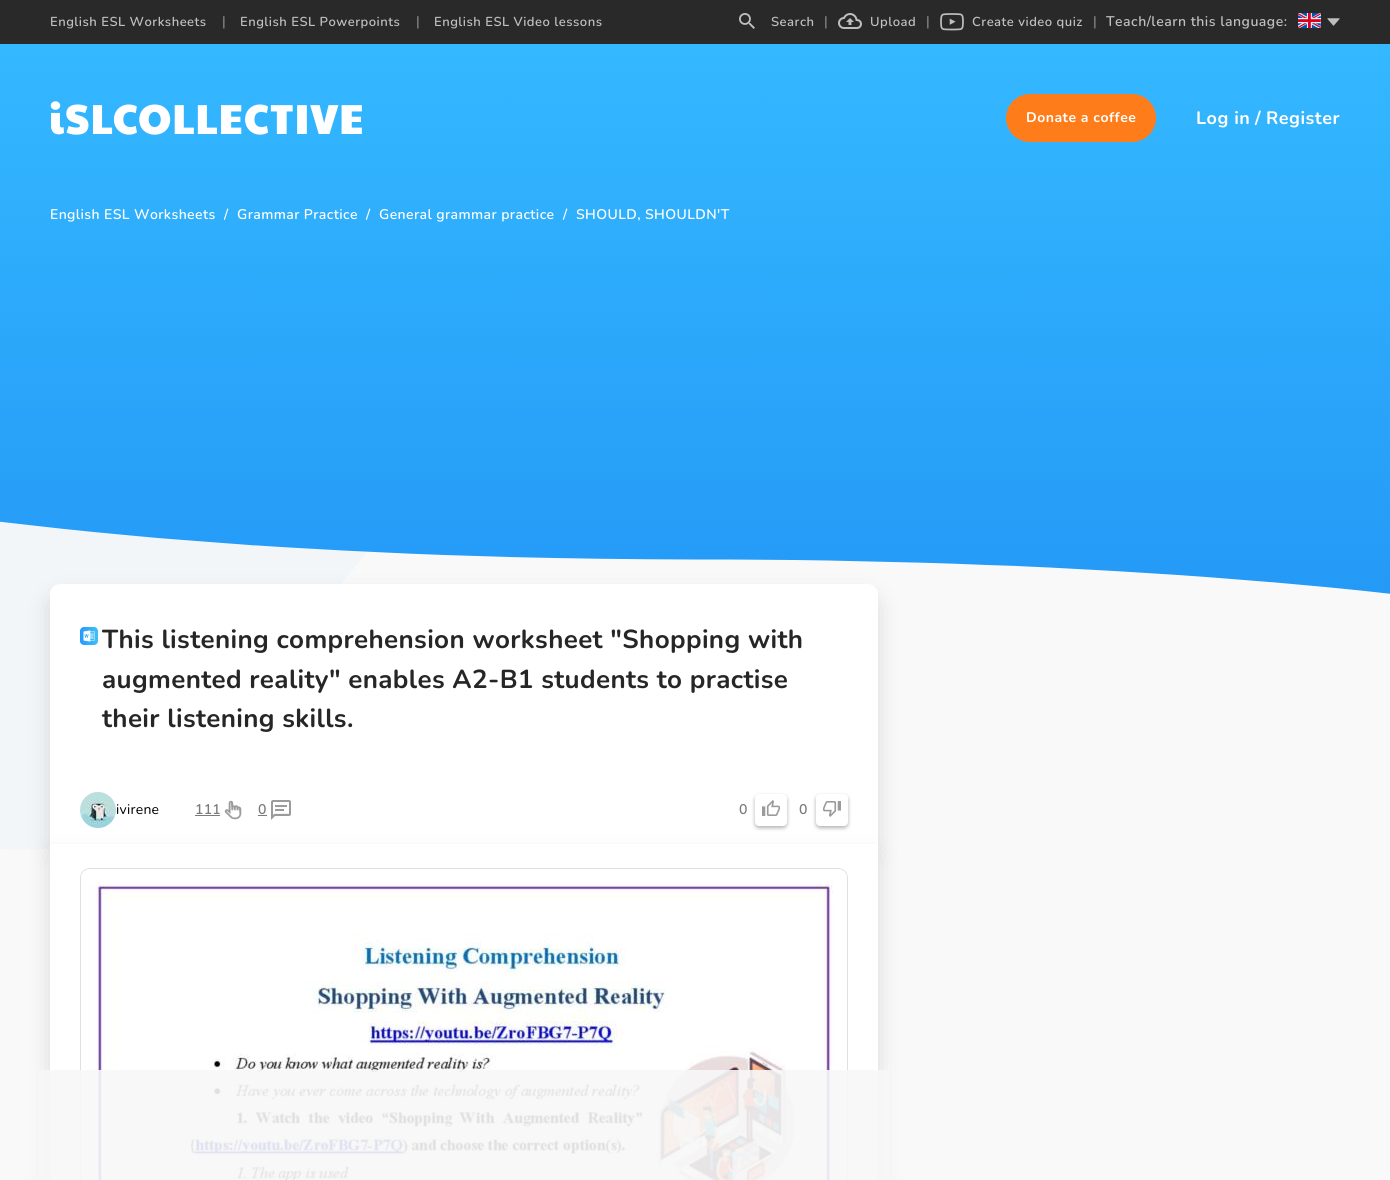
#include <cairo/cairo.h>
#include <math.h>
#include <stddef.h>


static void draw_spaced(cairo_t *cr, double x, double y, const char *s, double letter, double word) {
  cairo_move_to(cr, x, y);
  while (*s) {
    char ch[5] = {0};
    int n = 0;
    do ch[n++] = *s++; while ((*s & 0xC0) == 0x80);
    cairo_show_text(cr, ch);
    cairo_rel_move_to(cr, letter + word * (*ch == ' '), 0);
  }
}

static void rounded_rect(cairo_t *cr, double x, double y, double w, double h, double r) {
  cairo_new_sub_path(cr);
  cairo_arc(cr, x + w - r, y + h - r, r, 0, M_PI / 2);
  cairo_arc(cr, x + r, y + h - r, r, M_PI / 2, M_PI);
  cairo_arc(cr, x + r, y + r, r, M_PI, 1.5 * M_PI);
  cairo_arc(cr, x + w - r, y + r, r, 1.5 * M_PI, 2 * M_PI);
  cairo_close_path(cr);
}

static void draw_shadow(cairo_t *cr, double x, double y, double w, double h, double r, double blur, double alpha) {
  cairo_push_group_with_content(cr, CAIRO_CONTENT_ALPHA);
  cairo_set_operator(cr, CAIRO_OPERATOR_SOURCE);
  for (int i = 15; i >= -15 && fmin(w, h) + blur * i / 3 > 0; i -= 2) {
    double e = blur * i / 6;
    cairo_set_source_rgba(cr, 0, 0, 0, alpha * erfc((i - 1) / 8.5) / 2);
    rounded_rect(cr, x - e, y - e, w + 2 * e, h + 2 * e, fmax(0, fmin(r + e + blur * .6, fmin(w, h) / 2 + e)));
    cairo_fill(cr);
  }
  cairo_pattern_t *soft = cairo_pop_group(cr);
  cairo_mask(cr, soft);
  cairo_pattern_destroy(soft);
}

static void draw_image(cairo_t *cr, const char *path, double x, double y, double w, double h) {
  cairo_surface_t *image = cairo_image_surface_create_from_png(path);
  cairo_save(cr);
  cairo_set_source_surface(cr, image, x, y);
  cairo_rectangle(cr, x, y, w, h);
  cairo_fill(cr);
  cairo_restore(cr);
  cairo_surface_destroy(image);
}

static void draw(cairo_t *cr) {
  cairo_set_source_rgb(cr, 249 / 255.0, 249 / 255.0, 249 / 255.0);
  cairo_paint(cr);
  cairo_set_source_rgb(cr, 41 / 255.0, 41 / 255.0, 41 / 255.0);
  cairo_rectangle(cr, 0, 0, 1390, 44);
  cairo_fill(cr);
  draw_image(cr, "images/1.png", 739, 13, 16, 16);
  draw_image(cr, "images/2.png", 838, 13, 24, 16);
  draw_image(cr, "images/3.png", 940, 13, 24, 18);
  draw_image(cr, "images/4.png", 1298, 13, 23, 16);
  draw_image(cr, "images/5.png", 1327, 18, 13, 8);
  draw_image(cr, "images/6.png", 0, 521, 369, 329);
  draw_image(cr, "images/7.png", 0, 44, 1390, 550);
  draw_image(cr, "images/8.png", 50, 101, 312, 34);
  cairo_set_source_rgb(cr, 1, 124 / 255.0, 26 / 255.0);
  rounded_rect(cr, 1006, 94, 150, 48, 24);
  cairo_fill(cr);
  cairo_set_source_rgb(cr, 0, 0, 0);
  draw_shadow(cr, 50, 596, 828, 260, 10, 12, 0.12);
  cairo_set_source_rgb(cr, 1, 1, 1);
  cairo_new_path(cr);
  cairo_move_to(cr, 60, 584);
  cairo_line_to(cr, 868, 584);
  cairo_curve_to(cr, 873.5, 584, 878, 588.5, 878, 594);
  cairo_line_to(cr, 878, 844);
  cairo_line_to(cr, 50, 844);
  cairo_line_to(cr, 50, 594);
  cairo_curve_to(cr, 50, 588.5, 54.5, 584, 60, 584);
  cairo_close_path(cr);
  cairo_fill(cr);
  draw_image(cr, "images/9.png", 80, 627, 18, 18);
  draw_image(cr, "images/10.png", 80, 792, 36, 36);
  cairo_set_source_rgb(cr, 122 / 255.0, 122 / 255.0, 122 / 255.0);
  cairo_rectangle(cr, 195, 815, 25, 1);
  cairo_fill(cr);
  draw_image(cr, "images/11.png", 224, 800, 18, 20);
  cairo_rectangle(cr, 258, 815, 9, 1);
  cairo_fill(cr);
  draw_image(cr, "images/12.png", 271, 800, 20, 20);
  cairo_set_source_rgb(cr, 0, 0, 0);
  draw_shadow(cr, 755, 796, 32, 32, 4, 2, 0.3);
  cairo_set_source_rgb(cr, 1, 1, 1);
  rounded_rect(cr, 755, 794, 32, 32, 4);
  cairo_fill(cr);
  draw_image(cr, "images/13.png", 762, 800, 18, 16);
  cairo_set_source_rgb(cr, 0, 0, 0);
  draw_shadow(cr, 816, 796, 32, 32, 4, 2, 0.3);
  cairo_set_source_rgb(cr, 1, 1, 1);
  rounded_rect(cr, 816, 794, 32, 32, 4);
  cairo_fill(cr);
  draw_image(cr, "images/14.png", 823, 801, 18, 16);
  cairo_set_source_rgb(cr, 0, 0, 0);
  draw_shadow(cr, 50, 856, 828, 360, 0, 12, 0.12);
  cairo_set_source_rgb(cr, 1, 1, 1);
  cairo_rectangle(cr, 50, 844, 828, 336);
  cairo_fill(cr);
  rounded_rect(cr, 80.5, 868.5, 767, 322, 9.5);
  cairo_set_source_rgb(cr, 224 / 255.0, 224 / 255.0, 224 / 255.0);
  cairo_set_line_width(cr, 1);
  cairo_stroke(cr);
  draw_image(cr, "images/15.png", 81, 869, 766, 311);
  cairo_set_source_rgba(cr, 247 / 255.0, 247 / 255.0, 247 / 255.0, 0.9);
  cairo_rectangle(cr, 38, 1070, 852, 110);
  cairo_fill(cr);
  cairo_select_font_face(cr, "Nunito ExtraLight", CAIRO_FONT_SLANT_NORMAL, CAIRO_FONT_WEIGHT_NORMAL);
  cairo_set_font_size(cr, 13);
  cairo_set_source_rgb(cr, 191 / 255.0, 191 / 255.0, 191 / 255.0);
  draw_spaced(cr, 50, 26, "English ESL Worksheets", 0.5, 0);
  cairo_select_font_face(cr, "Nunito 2 ExtraLight", CAIRO_FONT_SLANT_NORMAL, CAIRO_FONT_WEIGHT_NORMAL);
  cairo_set_font_size(cr, 14);
  cairo_set_source_rgb(cr, 148 / 255.0, 148 / 255.0, 148 / 255.0);
  cairo_move_to(cr, 222, 26);
  cairo_show_text(cr, "|");
  cairo_select_font_face(cr, "Nunito ExtraLight", CAIRO_FONT_SLANT_NORMAL, CAIRO_FONT_WEIGHT_NORMAL);
  cairo_set_font_size(cr, 13);
  cairo_set_source_rgb(cr, 191 / 255.0, 191 / 255.0, 191 / 255.0);
  draw_spaced(cr, 240, 26, "English ESL Powerpoints", 0.5, 0);
  cairo_select_font_face(cr, "Nunito 2 ExtraLight", CAIRO_FONT_SLANT_NORMAL, CAIRO_FONT_WEIGHT_NORMAL);
  cairo_set_font_size(cr, 14);
  cairo_set_source_rgb(cr, 148 / 255.0, 148 / 255.0, 148 / 255.0);
  cairo_move_to(cr, 416, 26);
  cairo_show_text(cr, "|");
  cairo_select_font_face(cr, "Nunito ExtraLight", CAIRO_FONT_SLANT_NORMAL, CAIRO_FONT_WEIGHT_NORMAL);
  cairo_set_font_size(cr, 13);
  cairo_set_source_rgb(cr, 191 / 255.0, 191 / 255.0, 191 / 255.0);
  draw_spaced(cr, 434, 26, "English ESL Video lessons", 0.5, 0);
  draw_spaced(cr, 771, 26, "Search", 0.5, 0);
  cairo_select_font_face(cr, "Nunito 2 ExtraLight", CAIRO_FONT_SLANT_NORMAL, CAIRO_FONT_WEIGHT_NORMAL);
  cairo_set_font_size(cr, 14);
  cairo_set_source_rgb(cr, 148 / 255.0, 148 / 255.0, 148 / 255.0);
  cairo_move_to(cr, 824, 26);
  cairo_show_text(cr, "|");
  cairo_select_font_face(cr, "Nunito ExtraLight", CAIRO_FONT_SLANT_NORMAL, CAIRO_FONT_WEIGHT_NORMAL);
  cairo_set_font_size(cr, 13);
  cairo_set_source_rgb(cr, 191 / 255.0, 191 / 255.0, 191 / 255.0);
  draw_spaced(cr, 870, 26, "Upload", 0.5, 0);
  cairo_select_font_face(cr, "Nunito 2 ExtraLight", CAIRO_FONT_SLANT_NORMAL, CAIRO_FONT_WEIGHT_NORMAL);
  cairo_set_font_size(cr, 14);
  cairo_set_source_rgb(cr, 148 / 255.0, 148 / 255.0, 148 / 255.0);
  cairo_move_to(cr, 926, 26);
  cairo_show_text(cr, "|");
  cairo_select_font_face(cr, "Nunito ExtraLight", CAIRO_FONT_SLANT_NORMAL, CAIRO_FONT_WEIGHT_NORMAL);
  cairo_set_font_size(cr, 13);
  cairo_set_source_rgb(cr, 191 / 255.0, 191 / 255.0, 191 / 255.0);
  draw_spaced(cr, 972, 26, "Create video quiz", 0.5, 0);
  cairo_select_font_face(cr, "Nunito 2 ExtraLight", CAIRO_FONT_SLANT_NORMAL, CAIRO_FONT_WEIGHT_NORMAL);
  cairo_set_font_size(cr, 14);
  cairo_set_source_rgb(cr, 148 / 255.0, 148 / 255.0, 148 / 255.0);
  cairo_move_to(cr, 1093, 26);
  cairo_show_text(cr, "|");
  cairo_select_font_face(cr, "Nunito ExtraLight", CAIRO_FONT_SLANT_NORMAL, CAIRO_FONT_WEIGHT_NORMAL);
  cairo_set_source_rgb(cr, 191 / 255.0, 191 / 255.0, 191 / 255.0);
  draw_spaced(cr, 1106, 26, "Teach/learn this language:", 0.5, 0);
  cairo_select_font_face(cr, "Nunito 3 ExtraLight", CAIRO_FONT_SLANT_NORMAL, CAIRO_FONT_WEIGHT_NORMAL);
  cairo_set_source_rgb(cr, 1, 1, 1);
  draw_spaced(cr, 1026, 122, "Donate a coffee", 0.5, 0);
  cairo_set_font_size(cr, 18);
  draw_spaced(cr, 1196, 124, "Log in", 0.5, 0);
  draw_spaced(cr, 1255, 124, "/", 0.5, 0);
  draw_spaced(cr, 1266, 124, "Register", 0.5, 0);
  cairo_select_font_face(cr, "Nunito ExtraLight", CAIRO_FONT_SLANT_NORMAL, CAIRO_FONT_WEIGHT_NORMAL);
  cairo_set_font_size(cr, 14);
  draw_spaced(cr, 50, 219, "English ESL Worksheets", 0.4, 0);
  draw_spaced(cr, 224, 219, "/", 0.4, 0);
  draw_spaced(cr, 237, 219, "Grammar Practice", 0.4, 0);
  draw_spaced(cr, 366, 219, "/", 0.4, 0);
  draw_spaced(cr, 379, 219, "General grammar practice", 0.4, 0);
  draw_spaced(cr, 563, 219, "/", 0.4, 0);
  draw_spaced(cr, 576, 219, "SHOULD, SHOULDN'T", 0.4, 0);
  cairo_select_font_face(cr, "Nunito 3 ExtraLight", CAIRO_FONT_SLANT_NORMAL, CAIRO_FONT_WEIGHT_NORMAL);
  cairo_set_font_size(cr, 26);
  cairo_set_source_rgb(cr, 38 / 255.0, 38 / 255.0, 38 / 255.0);
  draw_spaced(cr, 102, 648, "This listening comprehension worksheet \"Shopping with", 0.35, 0);
  draw_spaced(cr, 102, 688, "augmented reality\" enables A2-B1 students to practise", 0.35, 0);
  draw_spaced(cr, 102, 727, "their listening skills.", 0.35, 0);
  cairo_select_font_face(cr, "Nunito 2 ExtraLight", CAIRO_FONT_SLANT_NORMAL, CAIRO_FONT_WEIGHT_NORMAL);
  cairo_set_font_size(cr, 14);
  cairo_set_source_rgb(cr, 0, 0, 0);
  draw_spaced(cr, 116, 814, "ivirene", 0.25, 0);
  cairo_select_font_face(cr, "Nunito ExtraLight", CAIRO_FONT_SLANT_NORMAL, CAIRO_FONT_WEIGHT_NORMAL);
  cairo_set_source_rgb(cr, 122 / 255.0, 122 / 255.0, 122 / 255.0);
  draw_spaced(cr, 195, 814, "111", 0.25, 0);
  draw_spaced(cr, 258, 814, "0", 0.25, 0);
  draw_spaced(cr, 739, 814, "0", 0.25, 0);
  draw_spaced(cr, 799, 814, "0", 0.25, 0);
}

int main(void) {
  cairo_surface_t *surface = cairo_image_surface_create(CAIRO_FORMAT_RGB24, 1390, 1180);
  cairo_t *cr = cairo_create(surface);
  cairo_font_options_t *options = cairo_font_options_create();
  cairo_font_options_set_hint_metrics(options, CAIRO_HINT_METRICS_OFF);
  cairo_font_options_set_hint_style(options, CAIRO_HINT_STYLE_NONE);
  cairo_set_font_options(cr, options);
  cairo_set_miter_limit(cr, 4);
  draw(cr);
  cairo_surface_write_to_png(surface, "out.png");
  cairo_font_options_destroy(options);
  cairo_destroy(cr);
  cairo_surface_destroy(surface);
  return 0;
}
